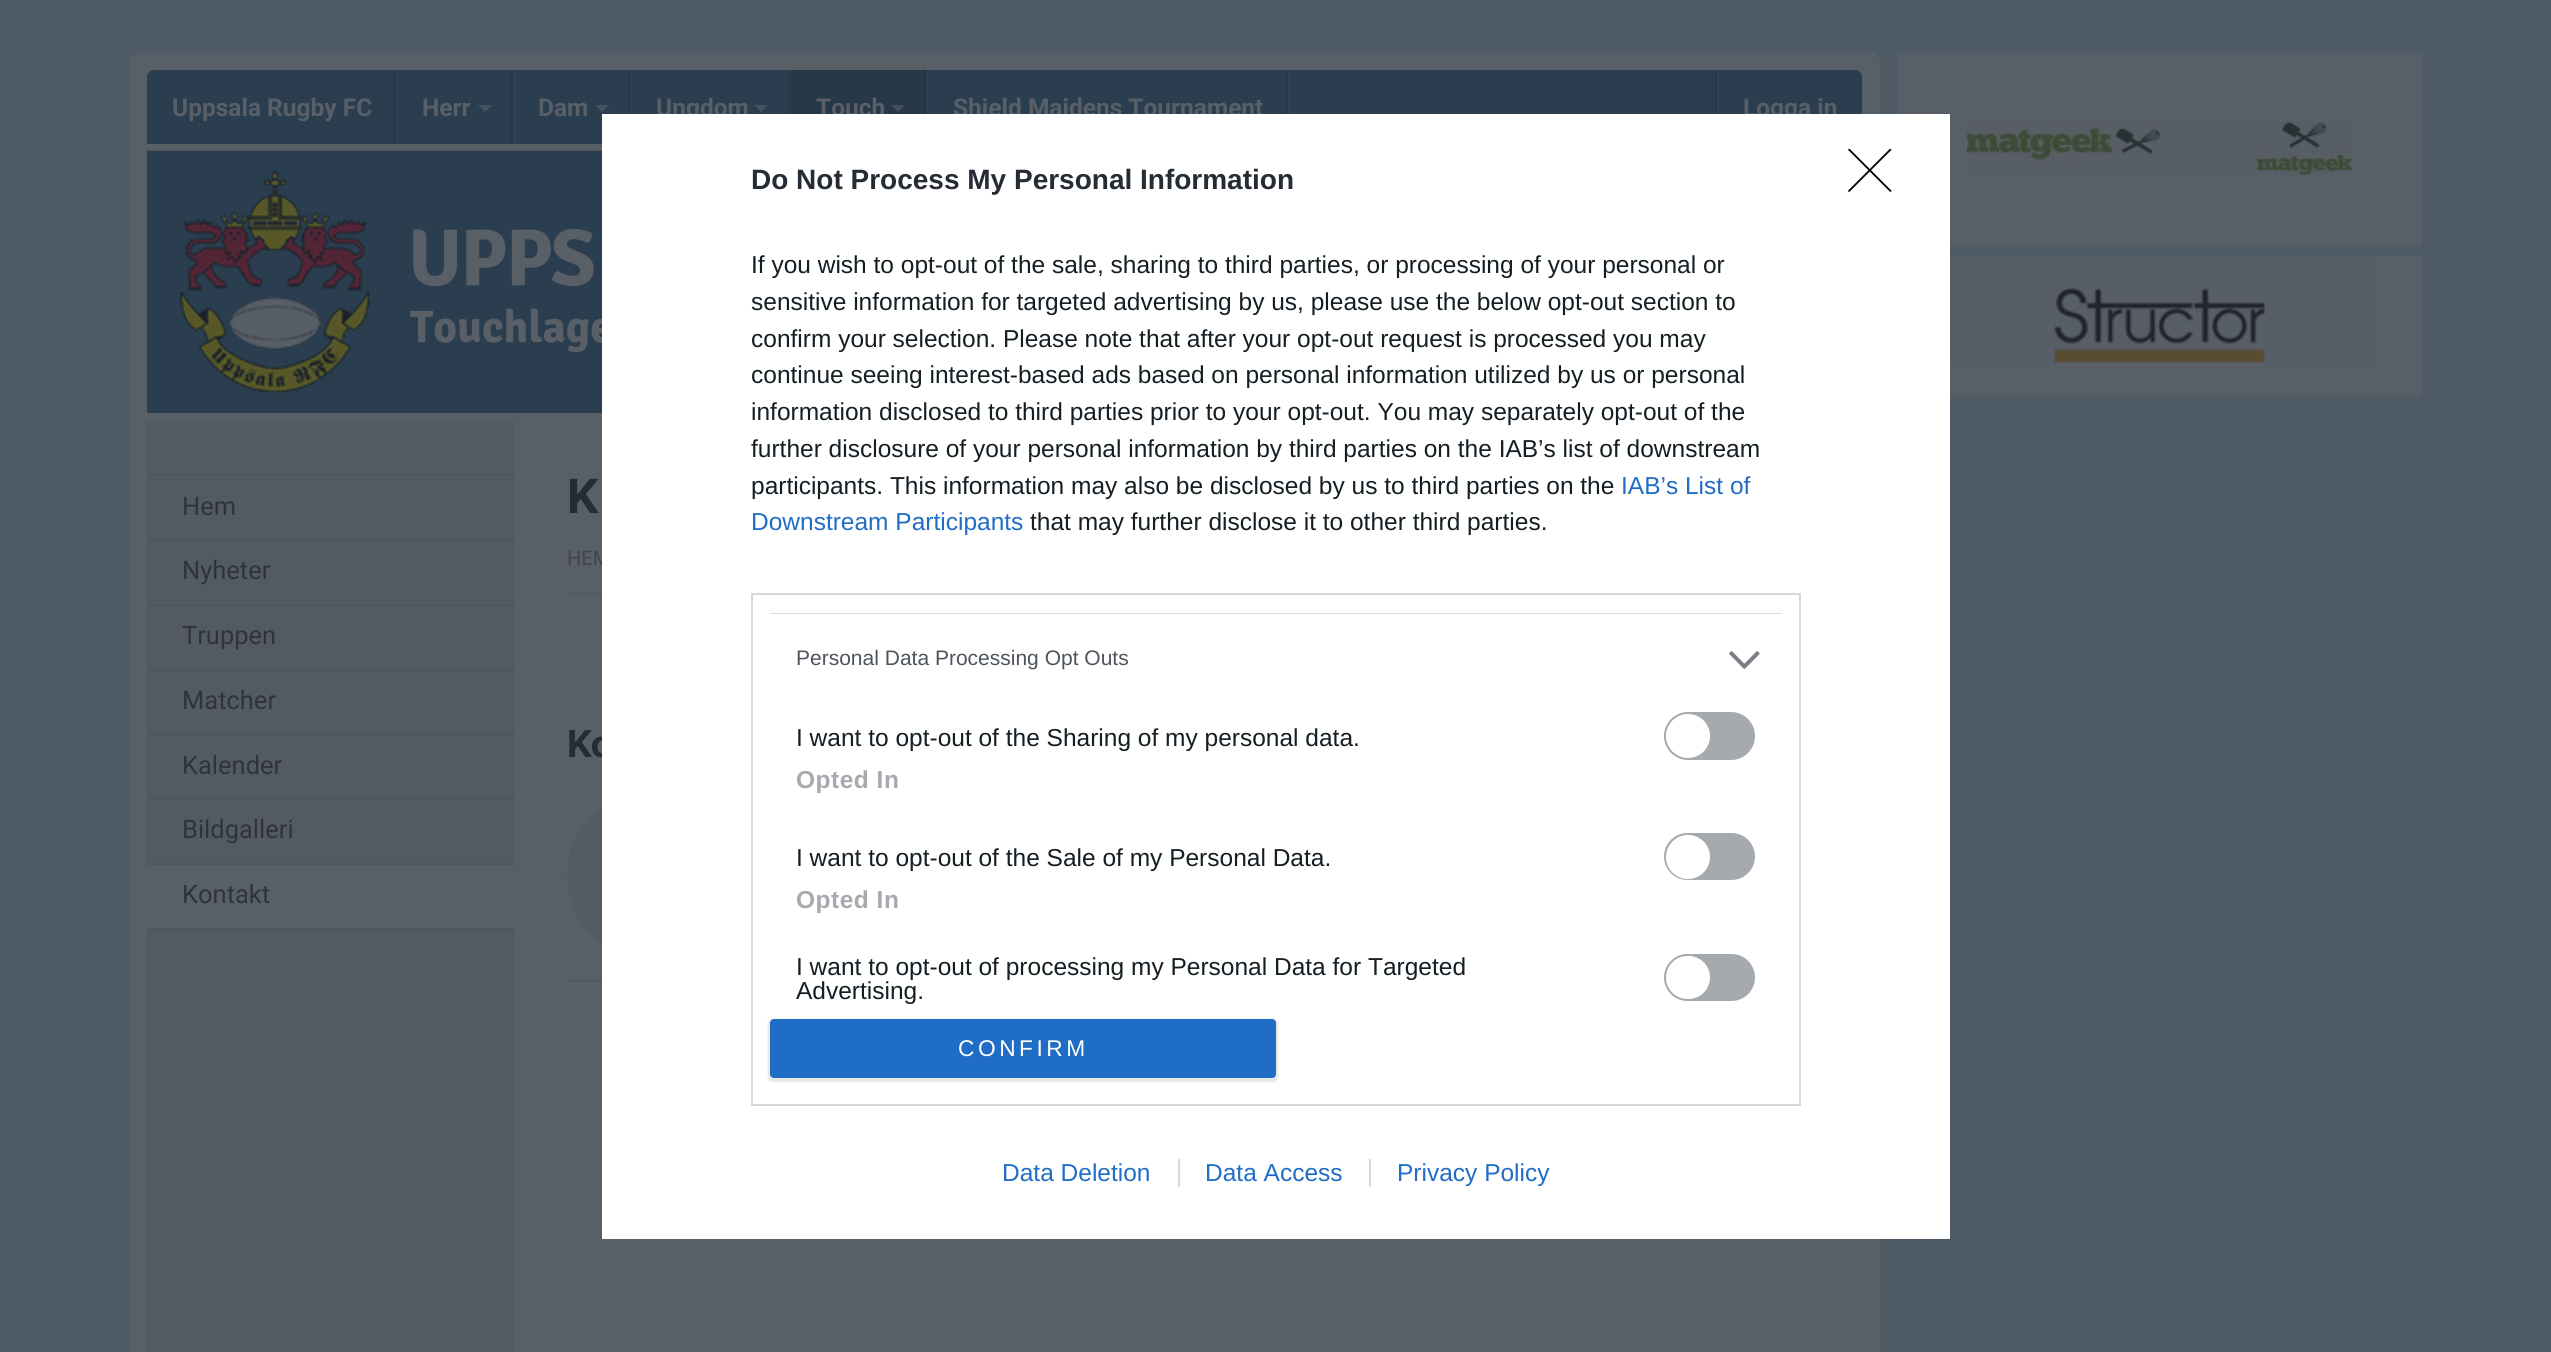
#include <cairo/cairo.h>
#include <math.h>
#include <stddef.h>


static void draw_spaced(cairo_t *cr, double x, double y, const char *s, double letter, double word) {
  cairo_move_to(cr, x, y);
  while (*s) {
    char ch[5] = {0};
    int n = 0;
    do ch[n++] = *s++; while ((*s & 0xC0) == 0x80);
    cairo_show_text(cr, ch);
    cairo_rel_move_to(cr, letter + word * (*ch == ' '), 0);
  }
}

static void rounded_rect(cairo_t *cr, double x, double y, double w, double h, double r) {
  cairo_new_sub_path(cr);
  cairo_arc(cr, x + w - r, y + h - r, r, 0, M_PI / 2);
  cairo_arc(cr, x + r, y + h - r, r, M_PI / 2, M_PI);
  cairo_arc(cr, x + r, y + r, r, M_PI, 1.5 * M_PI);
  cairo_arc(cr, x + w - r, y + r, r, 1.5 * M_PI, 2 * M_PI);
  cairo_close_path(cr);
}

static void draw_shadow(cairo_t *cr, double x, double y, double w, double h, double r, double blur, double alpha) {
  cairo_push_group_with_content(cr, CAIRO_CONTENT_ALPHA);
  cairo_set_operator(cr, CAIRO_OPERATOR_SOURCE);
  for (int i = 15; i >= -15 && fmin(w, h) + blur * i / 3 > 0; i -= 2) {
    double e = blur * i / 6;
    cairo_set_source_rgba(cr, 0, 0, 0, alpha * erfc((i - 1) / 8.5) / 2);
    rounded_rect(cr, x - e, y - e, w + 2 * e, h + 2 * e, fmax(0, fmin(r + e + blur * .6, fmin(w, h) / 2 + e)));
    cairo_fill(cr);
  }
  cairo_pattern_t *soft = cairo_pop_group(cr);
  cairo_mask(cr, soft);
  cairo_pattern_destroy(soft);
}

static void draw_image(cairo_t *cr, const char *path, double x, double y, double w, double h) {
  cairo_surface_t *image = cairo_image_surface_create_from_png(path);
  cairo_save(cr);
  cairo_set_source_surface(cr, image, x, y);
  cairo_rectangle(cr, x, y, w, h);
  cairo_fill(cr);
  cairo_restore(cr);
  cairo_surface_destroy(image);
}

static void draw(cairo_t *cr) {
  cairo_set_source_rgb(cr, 78 / 255.0, 90 / 255.0, 102 / 255.0);
  cairo_paint(cr);
  cairo_set_source_rgb(cr, 89 / 255.0, 95 / 255.0, 103 / 255.0);
  cairo_new_path(cr);
  cairo_move_to(cr, 139, 53);
  cairo_line_to(cr, 1871, 53);
  cairo_curve_to(cr, 1876, 53, 1880, 57, 1880, 62);
  cairo_line_to(cr, 1880, 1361);
  cairo_line_to(cr, 130, 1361);
  cairo_line_to(cr, 130, 62);
  cairo_curve_to(cr, 130, 57, 134, 53, 139, 53);
  cairo_close_path(cr);
  cairo_fill(cr);
  cairo_set_source_rgb(cr, 42 / 255.0, 62 / 255.0, 80 / 255.0);
  cairo_new_path(cr);
  cairo_move_to(cr, 154, 70);
  cairo_line_to(cr, 1855, 70);
  cairo_curve_to(cr, 1859, 70, 1862, 73, 1862, 77);
  cairo_line_to(cr, 1862, 144);
  cairo_line_to(cr, 147, 144);
  cairo_line_to(cr, 147, 77);
  cairo_curve_to(cr, 147, 73, 150, 70, 154, 70);
  cairo_close_path(cr);
  cairo_fill(cr);
  cairo_set_source_rgb(cr, 47 / 255.0, 66 / 255.0, 83 / 255.0);
  cairo_rectangle(cr, 1288, 70, 2, 44);
  cairo_fill(cr);
  cairo_set_source_rgb(cr, 39 / 255.0, 56 / 255.0, 72 / 255.0);
  cairo_rectangle(cr, 394, 70, 2, 74);
  cairo_fill(cr);
  cairo_rectangle(cr, 511, 70, 2, 74);
  cairo_fill(cr);
  cairo_set_source_rgb(cr, 47 / 255.0, 66 / 255.0, 83 / 255.0);
  cairo_rectangle(cr, 396, 70, 2, 74);
  cairo_fill(cr);
  cairo_set_source_rgb(cr, 70 / 255.0, 82 / 255.0, 94 / 255.0);
  cairo_new_path(cr);
  cairo_move_to(cr, 478, 105);
  cairo_line_to(cr, 492, 105);
  cairo_line_to(cr, 485, 112);
  cairo_close_path(cr);
  cairo_fill(cr);
  cairo_set_source_rgb(cr, 39 / 255.0, 56 / 255.0, 72 / 255.0);
  cairo_rectangle(cr, 628, 70, 2, 44);
  cairo_fill(cr);
  cairo_set_source_rgb(cr, 47 / 255.0, 66 / 255.0, 83 / 255.0);
  cairo_rectangle(cr, 513, 70, 2, 74);
  cairo_fill(cr);
  cairo_set_source_rgb(cr, 70 / 255.0, 82 / 255.0, 94 / 255.0);
  cairo_new_path(cr);
  cairo_move_to(cr, 595, 105);
  cairo_line_to(cr, 609, 105);
  cairo_line_to(cr, 602, 112);
  cairo_close_path(cr);
  cairo_fill(cr);
  cairo_set_source_rgb(cr, 39 / 255.0, 56 / 255.0, 72 / 255.0);
  cairo_rectangle(cr, 788, 70, 1, 44);
  cairo_fill(cr);
  cairo_set_source_rgb(cr, 47 / 255.0, 66 / 255.0, 83 / 255.0);
  cairo_rectangle(cr, 630, 70, 2, 44);
  cairo_fill(cr);
  cairo_set_source_rgb(cr, 70 / 255.0, 82 / 255.0, 94 / 255.0);
  cairo_new_path(cr);
  cairo_move_to(cr, 754, 105);
  cairo_line_to(cr, 768, 105);
  cairo_line_to(cr, 761, 112);
  cairo_close_path(cr);
  cairo_fill(cr);
  cairo_set_source_rgb(cr, 39 / 255.0, 56 / 255.0, 72 / 255.0);
  cairo_rectangle(cr, 791, 70, 133, 44);
  cairo_fill(cr);
  cairo_set_source_rgb(cr, 36 / 255.0, 51 / 255.0, 66 / 255.0);
  cairo_rectangle(cr, 924, 70, 2, 44);
  cairo_fill(cr);
  cairo_set_source_rgb(cr, 44 / 255.0, 60 / 255.0, 75 / 255.0);
  cairo_rectangle(cr, 789, 70, 2, 44);
  cairo_fill(cr);
  cairo_set_source_rgb(cr, 69 / 255.0, 79 / 255.0, 91 / 255.0);
  cairo_new_path(cr);
  cairo_move_to(cr, 891, 105);
  cairo_line_to(cr, 905, 105);
  cairo_line_to(cr, 898, 112);
  cairo_close_path(cr);
  cairo_fill(cr);
  cairo_set_source_rgb(cr, 39 / 255.0, 56 / 255.0, 72 / 255.0);
  cairo_rectangle(cr, 1286, 70, 2, 44);
  cairo_fill(cr);
  cairo_set_source_rgb(cr, 47 / 255.0, 66 / 255.0, 83 / 255.0);
  cairo_rectangle(cr, 926, 70, 2, 44);
  cairo_fill(cr);
  cairo_set_source_rgb(cr, 39 / 255.0, 56 / 255.0, 72 / 255.0);
  cairo_rectangle(cr, 1715, 70, 2, 44);
  cairo_fill(cr);
  cairo_set_source_rgb(cr, 47 / 255.0, 66 / 255.0, 83 / 255.0);
  cairo_rectangle(cr, 1717, 70, 2, 44);
  cairo_fill(cr);
  draw_image(cr, "images/1.png", 147, 150, 455, 263);
  cairo_set_source_rgb(cr, 84 / 255.0, 90 / 255.0, 99 / 255.0);
  cairo_rectangle(cr, 147, 421, 368, 931);
  cairo_fill(cr);
  cairo_set_source_rgb(cr, 80 / 255.0, 86 / 255.0, 94 / 255.0);
  cairo_rectangle(cr, 147, 474, 368, 2);
  cairo_fill(cr);
  cairo_rectangle(cr, 147, 539, 368, 2);
  cairo_fill(cr);
  cairo_rectangle(cr, 147, 604, 368, 2);
  cairo_fill(cr);
  cairo_rectangle(cr, 147, 669, 368, 2);
  cairo_fill(cr);
  cairo_rectangle(cr, 147, 733, 368, 2);
  cairo_fill(cr);
  cairo_rectangle(cr, 147, 798, 368, 2);
  cairo_fill(cr);
  cairo_rectangle(cr, 147, 863, 368, 2);
  cairo_fill(cr);
  cairo_set_source_rgb(cr, 89 / 255.0, 95 / 255.0, 103 / 255.0);
  cairo_rectangle(cr, 147, 865, 368, 63);
  cairo_fill(cr);
  cairo_set_source_rgb(cr, 80 / 255.0, 86 / 255.0, 94 / 255.0);
  cairo_rectangle(cr, 147, 928, 368, 2);
  cairo_fill(cr);
  cairo_set_source_rgb(cr, 84 / 255.0, 90 / 255.0, 99 / 255.0);
  cairo_rectangle(cr, 567, 593, 35, 2);
  cairo_fill(cr);
  cairo_rectangle(cr, 567, 980, 35, 2);
  cairo_fill(cr);
  cairo_set_source_rgb(cr, 85 / 255.0, 91 / 255.0, 100 / 255.0);
  cairo_arc(cr, 654.5, 875.5, 87.5, 0, 2 * M_PI);
  cairo_fill(cr);
  cairo_set_source_rgb(cr, 89 / 255.0, 95 / 255.0, 103 / 255.0);
  cairo_rectangle(cr, 1897, 53, 525, 192);
  cairo_fill(cr);
  draw_image(cr, "images/2.png", 1967, 122, 385, 53);
  cairo_rectangle(cr, 1950, 256, 472, 140);
  cairo_fill(cr);
  draw_image(cr, "images/3.png", 1950, 255, 428, 108);
  cairo_select_font_face(cr, "Roboto", CAIRO_FONT_SLANT_NORMAL, CAIRO_FONT_WEIGHT_BOLD);
  cairo_set_font_size(cr, 24.5);
  cairo_move_to(cr, 172, 116);
  cairo_show_text(cr, "Uppsala Rugby FC");
  cairo_move_to(cr, 422, 116);
  cairo_show_text(cr, "Herr");
  cairo_move_to(cr, 538, 116);
  cairo_show_text(cr, "Dam");
  cairo_move_to(cr, 656, 116);
  cairo_show_text(cr, "Ungdom");
  cairo_move_to(cr, 816, 116);
  cairo_show_text(cr, "Touch");
  cairo_move_to(cr, 953, 116);
  cairo_show_text(cr, "Shield Maidens Tournament");
  cairo_move_to(cr, 1743, 116);
  cairo_show_text(cr, "Logga in");
  cairo_select_font_face(cr, "Signika Light", CAIRO_FONT_SLANT_NORMAL, CAIRO_FONT_WEIGHT_NORMAL);
  cairo_set_font_size(cr, 80.5);
  draw_spaced(cr, 408, 285, "UPPS", -2, 0);
  cairo_set_font_size(cr, 45.5);
  cairo_move_to(cr, 410, 342);
  cairo_show_text(cr, "Touchlage");
  cairo_select_font_face(cr, "Roboto", CAIRO_FONT_SLANT_NORMAL, CAIRO_FONT_WEIGHT_NORMAL);
  cairo_set_font_size(cr, 25.5);
  cairo_set_source_rgb(cr, 46 / 255.0, 52 / 255.0, 60 / 255.0);
  cairo_move_to(cr, 182, 515);
  cairo_show_text(cr, "Hem");
  cairo_move_to(cr, 182, 579);
  cairo_show_text(cr, "Nyheter");
  cairo_move_to(cr, 182, 644);
  cairo_show_text(cr, "Truppen");
  cairo_move_to(cr, 182, 709);
  cairo_show_text(cr, "Matcher");
  cairo_move_to(cr, 182, 774);
  cairo_show_text(cr, "Kalender");
  cairo_move_to(cr, 182, 838);
  cairo_show_text(cr, "Bildgalleri");
  cairo_move_to(cr, 182, 903);
  cairo_show_text(cr, "Kontakt");
  cairo_select_font_face(cr, "Inter", CAIRO_FONT_SLANT_NORMAL, CAIRO_FONT_WEIGHT_BOLD);
  cairo_set_font_size(cr, 47);
  cairo_set_source_rgb(cr, 38 / 255.0, 44 / 255.0, 52 / 255.0);
  draw_spaced(cr, 567, 513, "K", -2, 0);
  cairo_select_font_face(cr, "Roboto", CAIRO_FONT_SLANT_NORMAL, CAIRO_FONT_WEIGHT_NORMAL);
  cairo_set_font_size(cr, 20);
  cairo_set_source_rgb(cr, 63 / 255.0, 69 / 255.0, 77 / 255.0);
  cairo_move_to(cr, 567, 565);
  cairo_show_text(cr, "HEM");
  cairo_select_font_face(cr, "Inter", CAIRO_FONT_SLANT_NORMAL, CAIRO_FONT_WEIGHT_BOLD);
  cairo_set_font_size(cr, 37);
  cairo_set_source_rgb(cr, 38 / 255.0, 44 / 255.0, 52 / 255.0);
  draw_spaced(cr, 567, 757, "Ko", -2, 0);
  cairo_set_source_rgb(cr, 1, 1, 1);
  cairo_rectangle(cr, 602, 114, 1348, 1125);
  cairo_fill(cr);
  cairo_select_font_face(cr, "Liberation Sans", CAIRO_FONT_SLANT_NORMAL, CAIRO_FONT_WEIGHT_BOLD);
  cairo_set_font_size(cr, 28);
  cairo_set_source_rgb(cr, 38 / 255.0, 44 / 255.0, 52 / 255.0);
  cairo_move_to(cr, 751, 189);
  cairo_show_text(cr, "Do Not Process My Personal Information");
  cairo_select_font_face(cr, "Liberation Sans", CAIRO_FONT_SLANT_NORMAL, CAIRO_FONT_WEIGHT_NORMAL);
  cairo_set_font_size(cr, 24.5);
  cairo_set_source_rgb(cr, 20 / 255.0, 30 / 255.0, 35 / 255.0);
  cairo_move_to(cr, 751, 273);
  cairo_show_text(cr, "If you wish to opt-out of the sale, sharing to third parties, or processing of your personal or");
  cairo_move_to(cr, 751, 310);
  cairo_show_text(cr, "sensitive information for targeted advertising by us, please use the below opt-out section to");
  cairo_move_to(cr, 751, 347);
  cairo_show_text(cr, "confirm your selection. Please note that after your opt-out request is processed you may");
  cairo_move_to(cr, 751, 383);
  cairo_show_text(cr, "continue seeing interest-based ads based on personal information utilized by us or personal");
  cairo_move_to(cr, 751, 420);
  cairo_show_text(cr, "information disclosed to third parties prior to your opt-out. You may separately opt-out of the");
  cairo_move_to(cr, 751, 457);
  cairo_show_text(cr, "further disclosure of your personal information by third parties on the IAB’s list of downstream");
  cairo_move_to(cr, 751, 494);
  cairo_show_text(cr, "participants. This information may also be disclosed by us to third parties on the");
  cairo_set_source_rgb(cr, 32 / 255.0, 109 / 255.0, 197 / 255.0);
  cairo_move_to(cr, 1621, 494);
  cairo_show_text(cr, "IAB’s List of");
  cairo_move_to(cr, 751, 530);
  cairo_show_text(cr, "Downstream Participants");
  cairo_set_source_rgb(cr, 20 / 255.0, 30 / 255.0, 35 / 255.0);
  cairo_move_to(cr, 1030, 530);
  cairo_show_text(cr, "that may further disclose it to other third parties.");
  cairo_rectangle(cr, 752, 594, 1048, 511);
  cairo_set_source_rgb(cr, 216 / 255.0, 216 / 255.0, 216 / 255.0);
  cairo_stroke(cr);
  cairo_set_source_rgb(cr, 221 / 255.0, 221 / 255.0, 221 / 255.0);
  cairo_rectangle(cr, 770, 613, 1012, 1);
  cairo_fill(cr);
  cairo_set_font_size(cr, 21);
  cairo_set_source_rgb(cr, 77 / 255.0, 84 / 255.0, 93 / 255.0);
  cairo_move_to(cr, 796, 665);
  cairo_show_text(cr, "Personal Data Processing Opt Outs");
  draw_image(cr, "images/4.png", 1729, 651, 31, 18);
  cairo_set_font_size(cr, 24.5);
  cairo_set_source_rgb(cr, 20 / 255.0, 30 / 255.0, 35 / 255.0);
  cairo_move_to(cr, 796, 746);
  cairo_show_text(cr, "I want to opt-out of the Sharing of my personal data.");
  cairo_set_source_rgb(cr, 166 / 255.0, 169 / 255.0, 174 / 255.0);
  rounded_rect(cr, 1665, 713, 89, 46, 23);
  cairo_fill_preserve(cr);
  cairo_stroke(cr);
  cairo_set_source_rgb(cr, 1, 1, 1);
  cairo_arc(cr, 1688, 736, 22, 0, 2 * M_PI);
  cairo_fill(cr);
  cairo_select_font_face(cr, "Liberation Sans", CAIRO_FONT_SLANT_NORMAL, CAIRO_FONT_WEIGHT_BOLD);
  cairo_set_source_rgb(cr, 166 / 255.0, 169 / 255.0, 174 / 255.0);
  draw_spaced(cr, 796, 788, "Opted In", 0.5, 0);
  cairo_select_font_face(cr, "Liberation Sans", CAIRO_FONT_SLANT_NORMAL, CAIRO_FONT_WEIGHT_NORMAL);
  cairo_set_source_rgb(cr, 20 / 255.0, 30 / 255.0, 35 / 255.0);
  cairo_move_to(cr, 796, 866);
  cairo_show_text(cr, "I want to opt-out of the Sale of my Personal Data.");
  cairo_set_source_rgb(cr, 166 / 255.0, 169 / 255.0, 174 / 255.0);
  rounded_rect(cr, 1665, 834, 89, 45, 22.5);
  cairo_fill_preserve(cr);
  cairo_stroke(cr);
  cairo_set_source_rgb(cr, 1, 1, 1);
  cairo_arc(cr, 1688, 857, 22, 0, 2 * M_PI);
  cairo_fill(cr);
  cairo_select_font_face(cr, "Liberation Sans", CAIRO_FONT_SLANT_NORMAL, CAIRO_FONT_WEIGHT_BOLD);
  cairo_set_source_rgb(cr, 166 / 255.0, 169 / 255.0, 174 / 255.0);
  draw_spaced(cr, 796, 908, "Opted In", 0.5, 0);
  cairo_select_font_face(cr, "Liberation Sans", CAIRO_FONT_SLANT_NORMAL, CAIRO_FONT_WEIGHT_NORMAL);
  cairo_set_source_rgb(cr, 20 / 255.0, 30 / 255.0, 35 / 255.0);
  cairo_move_to(cr, 796, 975);
  cairo_show_text(cr, "I want to opt-out of processing my Personal Data for Targeted");
  cairo_move_to(cr, 796, 999);
  cairo_show_text(cr, "Advertising.");
  cairo_set_source_rgb(cr, 166 / 255.0, 169 / 255.0, 174 / 255.0);
  rounded_rect(cr, 1665, 955, 89, 45, 22.5);
  cairo_fill_preserve(cr);
  cairo_stroke(cr);
  cairo_set_source_rgb(cr, 1, 1, 1);
  rounded_rect(cr, 1666, 956, 44, 43, 21.5);
  cairo_fill(cr);
  cairo_set_source_rgb(cr, 0, 0, 0);
  draw_shadow(cr, 768, 1019, 510, 63, 5, 1, 0.1);
  cairo_set_source_rgb(cr, 32 / 255.0, 109 / 255.0, 197 / 255.0);
  rounded_rect(cr, 770, 1019, 506, 59, 4);
  cairo_fill(cr);
  cairo_set_font_size(cr, 22.75);
  cairo_set_source_rgb(cr, 1, 1, 1);
  draw_spaced(cr, 958, 1056, "CONFIRM", 3.5, 0);
  cairo_save(cr);
  cairo_rectangle(cr, 1848, 149, 44, 44);
  cairo_clip(cr);
  cairo_new_path(cr);
  cairo_move_to(cr, 1849, 149.5);
  cairo_line_to(cr, 1890.5, 191);
  cairo_move_to(cr, 1890.5, 149.5);
  cairo_line_to(cr, 1849, 191);
  cairo_set_source_rgb(cr, 0, 0, 0);
  cairo_set_line_width(cr, 1.8);
  cairo_set_line_cap(cr, CAIRO_LINE_CAP_ROUND);
  cairo_set_line_join(cr, CAIRO_LINE_JOIN_ROUND);
  cairo_stroke(cr);
  cairo_restore(cr);
  cairo_set_font_size(cr, 24.5);
  cairo_set_source_rgb(cr, 32 / 255.0, 109 / 255.0, 197 / 255.0);
  cairo_move_to(cr, 1002, 1181);
  cairo_show_text(cr, "Data Deletion");
  cairo_move_to(cr, 1205, 1181);
  cairo_show_text(cr, "Data Access");
  cairo_set_source_rgb(cr, 216 / 255.0, 216 / 255.0, 216 / 255.0);
  cairo_rectangle(cr, 1178, 1159, 2, 28);
  cairo_fill(cr);
  cairo_set_source_rgb(cr, 32 / 255.0, 109 / 255.0, 197 / 255.0);
  cairo_move_to(cr, 1397, 1181);
  cairo_show_text(cr, "Privacy Policy");
  cairo_set_source_rgb(cr, 216 / 255.0, 216 / 255.0, 216 / 255.0);
  cairo_rectangle(cr, 1369, 1159, 2, 28);
  cairo_fill(cr);
}

int main(void) {
  cairo_surface_t *surface = cairo_image_surface_create(CAIRO_FORMAT_RGB24, 2551, 1352);
  cairo_t *cr = cairo_create(surface);
  cairo_font_options_t *options = cairo_font_options_create();
  cairo_font_options_set_hint_metrics(options, CAIRO_HINT_METRICS_OFF);
  cairo_font_options_set_hint_style(options, CAIRO_HINT_STYLE_NONE);
  cairo_set_font_options(cr, options);
  cairo_set_miter_limit(cr, 4);
  draw(cr);
  cairo_surface_write_to_png(surface, "out.png");
  cairo_font_options_destroy(options);
  cairo_destroy(cr);
  cairo_surface_destroy(surface);
  return 0;
}
